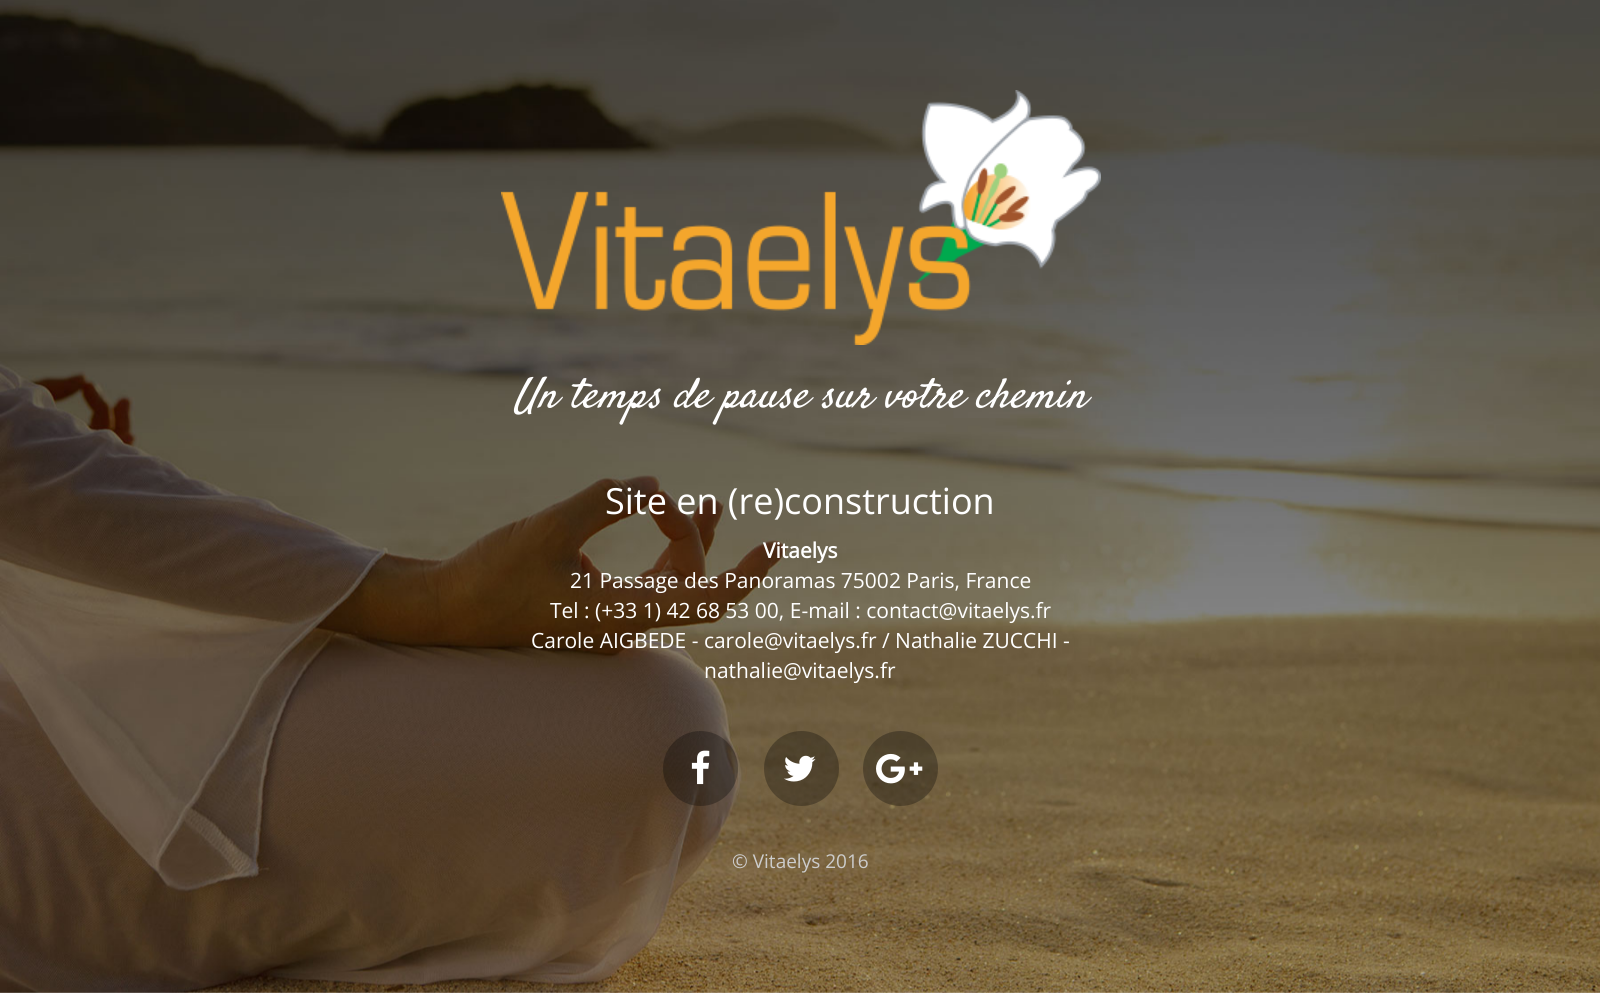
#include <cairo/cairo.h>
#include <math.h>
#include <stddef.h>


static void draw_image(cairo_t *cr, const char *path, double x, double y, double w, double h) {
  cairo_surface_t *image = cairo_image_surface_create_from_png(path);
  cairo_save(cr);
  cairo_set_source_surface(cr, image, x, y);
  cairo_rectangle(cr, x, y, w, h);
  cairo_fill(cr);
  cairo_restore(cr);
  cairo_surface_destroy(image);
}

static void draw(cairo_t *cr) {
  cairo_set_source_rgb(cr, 1, 1, 1);
  cairo_paint(cr);
  draw_image(cr, "images/1.png", 0, 0, 1600, 993);
  draw_image(cr, "images/2.png", 501, 90, 600, 255);
  cairo_set_source_rgba(cr, 0, 0, 0, 0.3);
  cairo_arc(cr, 700.5, 768.5, 37.5, 0, 2 * M_PI);
  cairo_fill(cr);
  draw_image(cr, "images/3.png", 691, 750, 19, 35);
  cairo_arc(cr, 801.5, 768.5, 37.5, 0, 2 * M_PI);
  cairo_fill(cr);
  draw_image(cr, "images/4.png", 784, 755, 32, 27);
  cairo_arc(cr, 900.5, 768.5, 37.5, 0, 2 * M_PI);
  cairo_fill(cr);
  draw_image(cr, "images/5.png", 876, 753, 47, 31);
  cairo_select_font_face(cr, "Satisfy", CAIRO_FONT_SLANT_ITALIC, CAIRO_FONT_WEIGHT_NORMAL);
  cairo_set_font_size(cr, 42);
  cairo_set_source_rgb(cr, 1, 1, 1);
  cairo_move_to(cr, 514, 407);
  cairo_show_text(cr, "Un temps de pause sur votre chemin");
  cairo_select_font_face(cr, "Open Sans", CAIRO_FONT_SLANT_NORMAL, CAIRO_FONT_WEIGHT_NORMAL);
  cairo_set_font_size(cr, 36);
  cairo_move_to(cr, 605, 514);
  cairo_show_text(cr, "Site en (re)construction");
  cairo_select_font_face(cr, "Open Sans", CAIRO_FONT_SLANT_NORMAL, CAIRO_FONT_WEIGHT_BOLD);
  cairo_set_font_size(cr, 21);
  cairo_move_to(cr, 763, 558);
  cairo_show_text(cr, "Vitaelys");
  cairo_select_font_face(cr, "Open Sans", CAIRO_FONT_SLANT_NORMAL, CAIRO_FONT_WEIGHT_NORMAL);
  cairo_move_to(cr, 570, 588);
  cairo_show_text(cr, "21 Passage des Panoramas 75002 Paris, France");
  cairo_move_to(cr, 550, 618);
  cairo_show_text(cr, "Tel : (+33 1) 42 68 53 00, E-mail : contact@vitaelys.fr");
  cairo_move_to(cr, 531, 648);
  cairo_show_text(cr, "Carole AIGBEDE - carole@vitaelys.fr / Nathalie ZUCCHI -");
  cairo_move_to(cr, 704, 678);
  cairo_show_text(cr, "nathalie@vitaelys.fr");
  cairo_set_font_size(cr, 19);
  cairo_set_source_rgb(cr, 204 / 255.0, 204 / 255.0, 204 / 255.0);
  cairo_move_to(cr, 732, 868);
  cairo_show_text(cr, "© Vitaelys 2016");
}

int main(void) {
  cairo_surface_t *surface = cairo_image_surface_create(CAIRO_FORMAT_RGB24, 1600, 993);
  cairo_t *cr = cairo_create(surface);
  cairo_font_options_t *options = cairo_font_options_create();
  cairo_font_options_set_hint_metrics(options, CAIRO_HINT_METRICS_OFF);
  cairo_font_options_set_hint_style(options, CAIRO_HINT_STYLE_NONE);
  cairo_set_font_options(cr, options);
  cairo_set_miter_limit(cr, 4);
  draw(cr);
  cairo_surface_write_to_png(surface, "out.png");
  cairo_font_options_destroy(options);
  cairo_destroy(cr);
  cairo_surface_destroy(surface);
  return 0;
}
